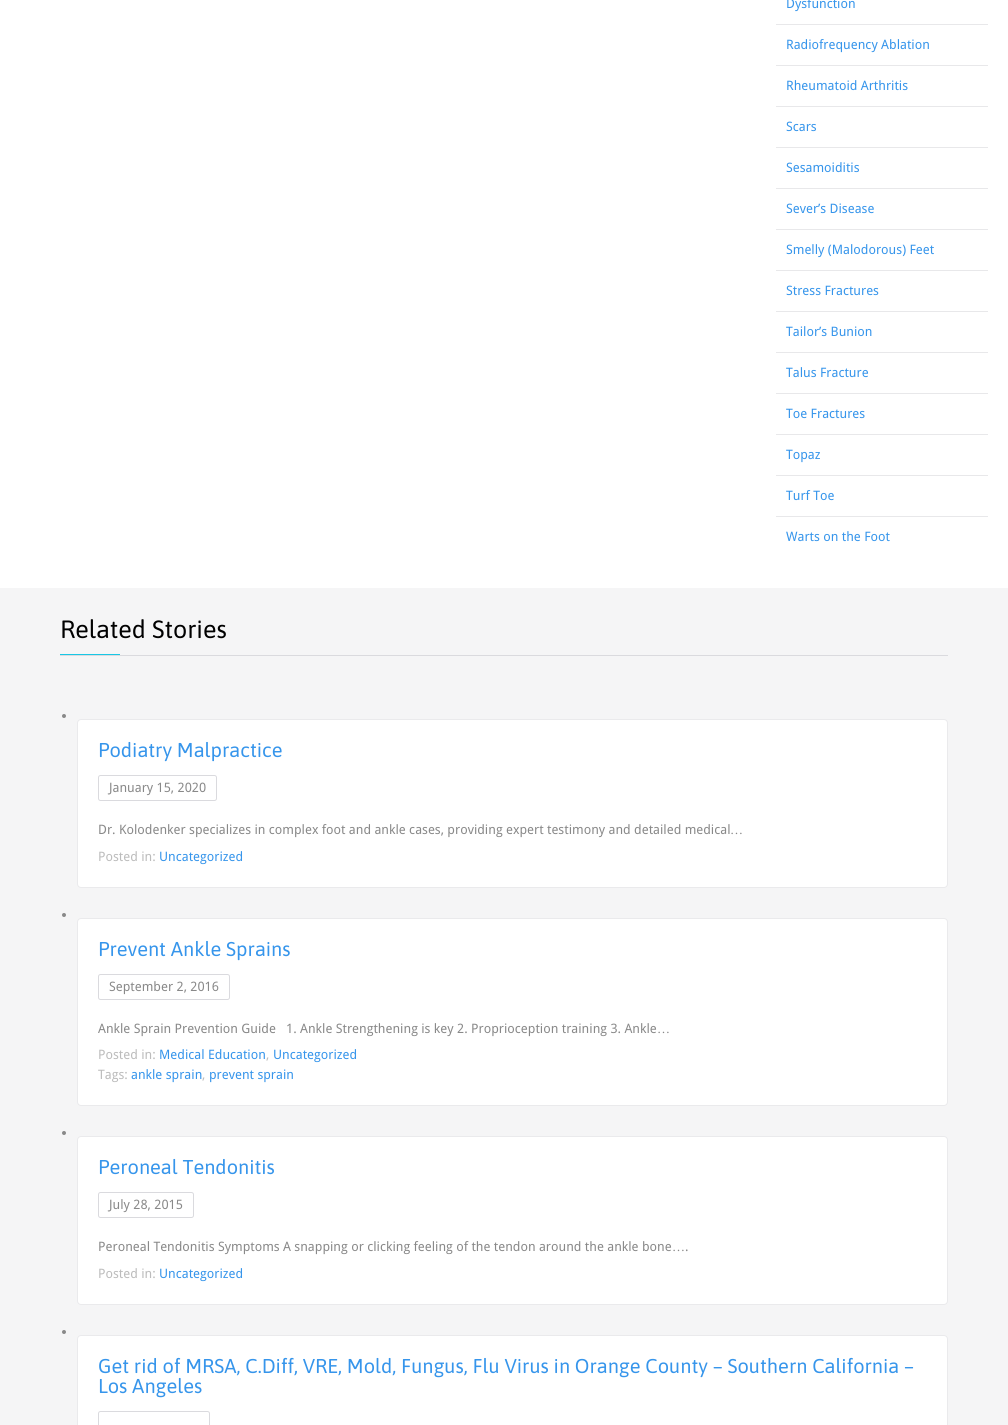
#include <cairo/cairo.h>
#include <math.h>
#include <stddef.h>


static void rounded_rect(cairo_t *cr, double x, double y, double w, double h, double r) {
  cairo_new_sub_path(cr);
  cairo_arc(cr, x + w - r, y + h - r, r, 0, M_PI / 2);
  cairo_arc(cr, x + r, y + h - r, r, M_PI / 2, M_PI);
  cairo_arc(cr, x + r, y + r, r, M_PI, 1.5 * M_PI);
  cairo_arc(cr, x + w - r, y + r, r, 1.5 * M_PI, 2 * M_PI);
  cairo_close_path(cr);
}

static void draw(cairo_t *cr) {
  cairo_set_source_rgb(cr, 1, 1, 1);
  cairo_paint(cr);
  cairo_set_source_rgb(cr, 232 / 255.0, 232 / 255.0, 234 / 255.0);
  cairo_rectangle(cr, 776, 24, 212, 1);
  cairo_fill(cr);
  cairo_rectangle(cr, 776, 65, 212, 1);
  cairo_fill(cr);
  cairo_rectangle(cr, 776, 106, 212, 1);
  cairo_fill(cr);
  cairo_rectangle(cr, 776, 147, 212, 1);
  cairo_fill(cr);
  cairo_rectangle(cr, 776, 188, 212, 1);
  cairo_fill(cr);
  cairo_rectangle(cr, 776, 229, 212, 1);
  cairo_fill(cr);
  cairo_rectangle(cr, 776, 270, 212, 1);
  cairo_fill(cr);
  cairo_rectangle(cr, 776, 311, 212, 1);
  cairo_fill(cr);
  cairo_rectangle(cr, 776, 352, 212, 1);
  cairo_fill(cr);
  cairo_rectangle(cr, 776, 393, 212, 1);
  cairo_fill(cr);
  cairo_rectangle(cr, 776, 434, 212, 1);
  cairo_fill(cr);
  cairo_rectangle(cr, 776, 475, 212, 1);
  cairo_fill(cr);
  cairo_rectangle(cr, 776, 516, 212, 1);
  cairo_fill(cr);
  cairo_set_source_rgb(cr, 245 / 255.0, 245 / 255.0, 246 / 255.0);
  cairo_rectangle(cr, 0, 588, 1008, 837);
  cairo_fill(cr);
  cairo_set_source_rgb(cr, 218 / 255.0, 218 / 255.0, 222 / 255.0);
  cairo_rectangle(cr, 60, 655, 888, 1);
  cairo_fill(cr);
  cairo_set_source_rgb(cr, 24 / 255.0, 199 / 255.0, 229 / 255.0);
  cairo_rectangle(cr, 60, 654, 60, 1);
  cairo_fill(cr);
  cairo_set_source_rgb(cr, 137 / 255.0, 137 / 255.0, 137 / 255.0);
  cairo_arc(cr, 64, 716, 2, 0, 2 * M_PI);
  cairo_fill(cr);
  cairo_set_source_rgb(cr, 1, 1, 1);
  rounded_rect(cr, 77.5, 719.5, 870, 168, 3.5);
  cairo_fill_preserve(cr);
  cairo_set_source_rgb(cr, 234 / 255.0, 234 / 255.0, 236 / 255.0);
  cairo_set_line_width(cr, 1);
  cairo_stroke(cr);
  rounded_rect(cr, 98.5, 775.5, 118, 25, 2);
  cairo_set_source_rgb(cr, 218 / 255.0, 218 / 255.0, 222 / 255.0);
  cairo_stroke(cr);
  cairo_set_source_rgb(cr, 137 / 255.0, 137 / 255.0, 137 / 255.0);
  cairo_arc(cr, 64, 915, 2, 0, 2 * M_PI);
  cairo_fill(cr);
  cairo_set_source_rgb(cr, 1, 1, 1);
  rounded_rect(cr, 77.5, 918.5, 870, 187, 3.5);
  cairo_fill_preserve(cr);
  cairo_set_source_rgb(cr, 234 / 255.0, 234 / 255.0, 236 / 255.0);
  cairo_stroke(cr);
  rounded_rect(cr, 98.5, 974.5, 131, 25, 2);
  cairo_set_source_rgb(cr, 218 / 255.0, 218 / 255.0, 222 / 255.0);
  cairo_stroke(cr);
  cairo_set_source_rgb(cr, 137 / 255.0, 137 / 255.0, 137 / 255.0);
  cairo_arc(cr, 64, 1133, 2, 0, 2 * M_PI);
  cairo_fill(cr);
  cairo_set_source_rgb(cr, 1, 1, 1);
  rounded_rect(cr, 77.5, 1136.5, 870, 168, 3.5);
  cairo_fill_preserve(cr);
  cairo_set_source_rgb(cr, 234 / 255.0, 234 / 255.0, 236 / 255.0);
  cairo_stroke(cr);
  rounded_rect(cr, 98.5, 1192.5, 95, 25, 2);
  cairo_set_source_rgb(cr, 218 / 255.0, 218 / 255.0, 222 / 255.0);
  cairo_stroke(cr);
  cairo_set_source_rgb(cr, 137 / 255.0, 137 / 255.0, 137 / 255.0);
  cairo_arc(cr, 64, 1332, 2, 0, 2 * M_PI);
  cairo_fill(cr);
  cairo_set_source_rgb(cr, 1, 1, 1);
  rounded_rect(cr, 77.5, 1335.5, 870, 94, 3.5);
  cairo_fill_preserve(cr);
  cairo_set_source_rgb(cr, 234 / 255.0, 234 / 255.0, 236 / 255.0);
  cairo_stroke(cr);
  rounded_rect(cr, 98.5, 1411.5, 111, 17, 2);
  cairo_set_source_rgb(cr, 218 / 255.0, 218 / 255.0, 222 / 255.0);
  cairo_stroke(cr);
  cairo_select_font_face(cr, "Droid Sans", CAIRO_FONT_SLANT_NORMAL, CAIRO_FONT_WEIGHT_NORMAL);
  cairo_set_font_size(cr, 13);
  cairo_set_source_rgb(cr, 54 / 255.0, 149 / 255.0, 235 / 255.0);
  cairo_move_to(cr, 786, 8);
  cairo_show_text(cr, "Dysfunction");
  cairo_move_to(cr, 786, 49);
  cairo_show_text(cr, "Radiofrequency Ablation");
  cairo_move_to(cr, 786, 90);
  cairo_show_text(cr, "Rheumatoid Arthritis");
  cairo_move_to(cr, 786, 131);
  cairo_show_text(cr, "Scars");
  cairo_move_to(cr, 786, 172);
  cairo_show_text(cr, "Sesamoiditis");
  cairo_move_to(cr, 786, 213);
  cairo_show_text(cr, "Sever’s Disease");
  cairo_move_to(cr, 786, 254);
  cairo_show_text(cr, "Smelly (Malodorous) Feet");
  cairo_move_to(cr, 786, 295);
  cairo_show_text(cr, "Stress Fractures");
  cairo_move_to(cr, 786, 336);
  cairo_show_text(cr, "Tailor’s Bunion");
  cairo_move_to(cr, 786, 377);
  cairo_show_text(cr, "Talus Fracture");
  cairo_move_to(cr, 786, 418);
  cairo_show_text(cr, "Toe Fractures");
  cairo_move_to(cr, 786, 459);
  cairo_show_text(cr, "Topaz");
  cairo_move_to(cr, 786, 500);
  cairo_show_text(cr, "Turf Toe");
  cairo_move_to(cr, 786, 541);
  cairo_show_text(cr, "Warts on the Foot");
  cairo_select_font_face(cr, "Asap", CAIRO_FONT_SLANT_NORMAL, CAIRO_FONT_WEIGHT_NORMAL);
  cairo_set_font_size(cr, 25);
  cairo_set_source_rgb(cr, 0, 0, 0);
  cairo_move_to(cr, 60, 638);
  cairo_show_text(cr, "Related Stories");
  cairo_set_font_size(cr, 20);
  cairo_set_source_rgb(cr, 54 / 255.0, 149 / 255.0, 235 / 255.0);
  cairo_move_to(cr, 98, 757);
  cairo_show_text(cr, "Podiatry Malpractice");
  cairo_select_font_face(cr, "Droid Sans", CAIRO_FONT_SLANT_NORMAL, CAIRO_FONT_WEIGHT_NORMAL);
  cairo_set_font_size(cr, 13);
  cairo_set_source_rgb(cr, 137 / 255.0, 137 / 255.0, 137 / 255.0);
  cairo_move_to(cr, 109, 792);
  cairo_show_text(cr, "January 15, 2020");
  cairo_move_to(cr, 98, 834);
  cairo_show_text(cr, "Dr. Kolodenker specializes in complex foot and ankle cases, providing expert testimony and detailed medical");
  cairo_select_font_face(cr, "Liberation Serif", CAIRO_FONT_SLANT_NORMAL, CAIRO_FONT_WEIGHT_NORMAL);
  cairo_move_to(cr, 730, 834);
  cairo_show_text(cr, "…");
  cairo_select_font_face(cr, "Droid Sans", CAIRO_FONT_SLANT_NORMAL, CAIRO_FONT_WEIGHT_NORMAL);
  cairo_set_source_rgb(cr, 188 / 255.0, 188 / 255.0, 188 / 255.0);
  cairo_move_to(cr, 98, 861);
  cairo_show_text(cr, "Posted in:");
  cairo_set_source_rgb(cr, 54 / 255.0, 149 / 255.0, 235 / 255.0);
  cairo_move_to(cr, 159, 861);
  cairo_show_text(cr, "Uncategorized");
  cairo_select_font_face(cr, "Asap", CAIRO_FONT_SLANT_NORMAL, CAIRO_FONT_WEIGHT_NORMAL);
  cairo_set_font_size(cr, 20);
  cairo_move_to(cr, 98, 956);
  cairo_show_text(cr, "Prevent Ankle Sprains");
  cairo_select_font_face(cr, "Droid Sans", CAIRO_FONT_SLANT_NORMAL, CAIRO_FONT_WEIGHT_NORMAL);
  cairo_set_font_size(cr, 13);
  cairo_set_source_rgb(cr, 137 / 255.0, 137 / 255.0, 137 / 255.0);
  cairo_move_to(cr, 109, 991);
  cairo_show_text(cr, "September 2, 2016");
  cairo_move_to(cr, 98, 1033);
  cairo_show_text(cr, "Ankle Sprain Prevention Guide   1. Ankle Strengthening is key 2. Proprioception training 3. Ankle");
  cairo_select_font_face(cr, "Liberation Serif", CAIRO_FONT_SLANT_NORMAL, CAIRO_FONT_WEIGHT_NORMAL);
  cairo_move_to(cr, 657, 1033);
  cairo_show_text(cr, "…");
  cairo_select_font_face(cr, "Droid Sans", CAIRO_FONT_SLANT_NORMAL, CAIRO_FONT_WEIGHT_NORMAL);
  cairo_set_source_rgb(cr, 188 / 255.0, 188 / 255.0, 188 / 255.0);
  cairo_move_to(cr, 98, 1059);
  cairo_show_text(cr, "Posted in:");
  cairo_set_source_rgb(cr, 54 / 255.0, 149 / 255.0, 235 / 255.0);
  cairo_move_to(cr, 159, 1059);
  cairo_show_text(cr, "Medical Education");
  cairo_set_source_rgb(cr, 188 / 255.0, 188 / 255.0, 188 / 255.0);
  cairo_move_to(cr, 266, 1059);
  cairo_show_text(cr, ",");
  cairo_set_source_rgb(cr, 54 / 255.0, 149 / 255.0, 235 / 255.0);
  cairo_move_to(cr, 273, 1059);
  cairo_show_text(cr, "Uncategorized");
  cairo_set_source_rgb(cr, 188 / 255.0, 188 / 255.0, 188 / 255.0);
  cairo_move_to(cr, 98, 1079);
  cairo_show_text(cr, "Tags:");
  cairo_set_source_rgb(cr, 54 / 255.0, 149 / 255.0, 235 / 255.0);
  cairo_move_to(cr, 131, 1079);
  cairo_show_text(cr, "ankle sprain");
  cairo_set_source_rgb(cr, 188 / 255.0, 188 / 255.0, 188 / 255.0);
  cairo_move_to(cr, 202, 1079);
  cairo_show_text(cr, ",");
  cairo_set_source_rgb(cr, 54 / 255.0, 149 / 255.0, 235 / 255.0);
  cairo_move_to(cr, 209, 1079);
  cairo_show_text(cr, "prevent sprain");
  cairo_select_font_face(cr, "Asap", CAIRO_FONT_SLANT_NORMAL, CAIRO_FONT_WEIGHT_NORMAL);
  cairo_set_font_size(cr, 20);
  cairo_move_to(cr, 98, 1174);
  cairo_show_text(cr, "Peroneal Tendonitis");
  cairo_select_font_face(cr, "Droid Sans", CAIRO_FONT_SLANT_NORMAL, CAIRO_FONT_WEIGHT_NORMAL);
  cairo_set_font_size(cr, 13);
  cairo_set_source_rgb(cr, 137 / 255.0, 137 / 255.0, 137 / 255.0);
  cairo_move_to(cr, 109, 1209);
  cairo_show_text(cr, "July 28, 2015");
  cairo_move_to(cr, 98, 1251);
  cairo_show_text(cr, "Peroneal Tendonitis Symptoms A snapping or clicking feeling of the tendon around the ankle bone");
  cairo_select_font_face(cr, "Liberation Serif", CAIRO_FONT_SLANT_NORMAL, CAIRO_FONT_WEIGHT_NORMAL);
  cairo_move_to(cr, 672, 1251);
  cairo_show_text(cr, "…");
  cairo_select_font_face(cr, "Droid Sans", CAIRO_FONT_SLANT_NORMAL, CAIRO_FONT_WEIGHT_NORMAL);
  cairo_move_to(cr, 685, 1251);
  cairo_show_text(cr, ".");
  cairo_set_source_rgb(cr, 188 / 255.0, 188 / 255.0, 188 / 255.0);
  cairo_move_to(cr, 98, 1278);
  cairo_show_text(cr, "Posted in:");
  cairo_set_source_rgb(cr, 54 / 255.0, 149 / 255.0, 235 / 255.0);
  cairo_move_to(cr, 159, 1278);
  cairo_show_text(cr, "Uncategorized");
  cairo_select_font_face(cr, "Asap", CAIRO_FONT_SLANT_NORMAL, CAIRO_FONT_WEIGHT_NORMAL);
  cairo_set_font_size(cr, 20);
  cairo_move_to(cr, 98, 1373);
  cairo_show_text(cr, "Get rid of MRSA, C.Diff, VRE, Mold, Fungus, Flu Virus in Orange County – Southern California –");
  cairo_move_to(cr, 98, 1393);
  cairo_show_text(cr, "Los Angeles");
}

int main(void) {
  cairo_surface_t *surface = cairo_image_surface_create(CAIRO_FORMAT_RGB24, 1008, 1425);
  cairo_t *cr = cairo_create(surface);
  cairo_font_options_t *options = cairo_font_options_create();
  cairo_font_options_set_hint_metrics(options, CAIRO_HINT_METRICS_OFF);
  cairo_font_options_set_hint_style(options, CAIRO_HINT_STYLE_NONE);
  cairo_set_font_options(cr, options);
  cairo_set_miter_limit(cr, 4);
  draw(cr);
  cairo_surface_write_to_png(surface, "out.png");
  cairo_font_options_destroy(options);
  cairo_destroy(cr);
  cairo_surface_destroy(surface);
  return 0;
}
